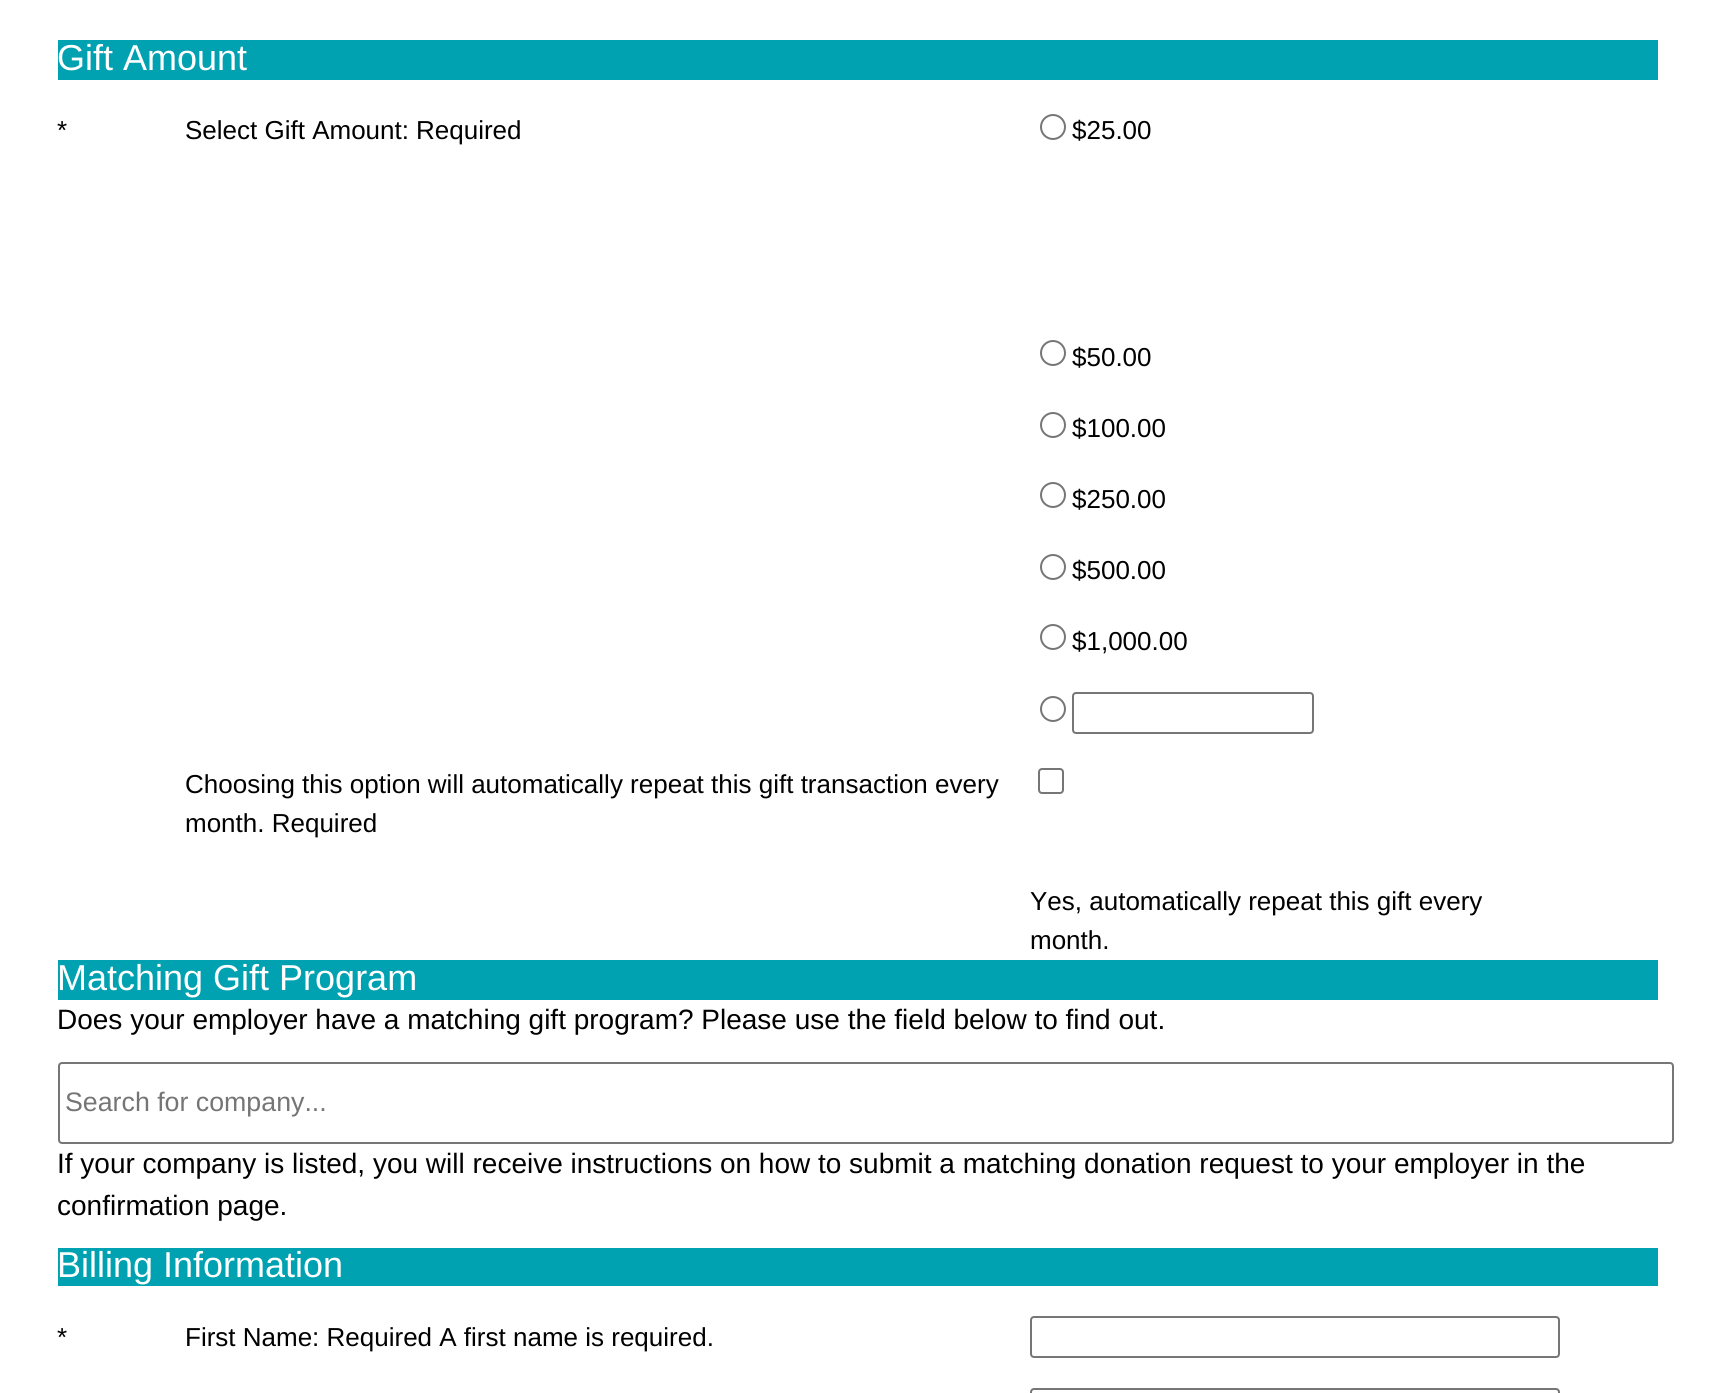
#include <cairo/cairo.h>
#include <math.h>
#include <stddef.h>


static void rounded_rect(cairo_t *cr, double x, double y, double w, double h, double r) {
  cairo_new_sub_path(cr);
  cairo_arc(cr, x + w - r, y + h - r, r, 0, M_PI / 2);
  cairo_arc(cr, x + r, y + h - r, r, M_PI / 2, M_PI);
  cairo_arc(cr, x + r, y + r, r, M_PI, 1.5 * M_PI);
  cairo_arc(cr, x + w - r, y + r, r, 1.5 * M_PI, 2 * M_PI);
  cairo_close_path(cr);
}

static void draw(cairo_t *cr) {
  cairo_set_source_rgb(cr, 1, 1, 1);
  cairo_paint(cr);
  cairo_set_source_rgb(cr, 0, 161 / 255.0, 176 / 255.0);
  cairo_rectangle(cr, 58, 40, 1600, 40);
  cairo_fill(cr);
  cairo_arc(cr, 1053, 127, 12, 0, 2 * M_PI);
  cairo_set_source_rgb(cr, 118 / 255.0, 118 / 255.0, 118 / 255.0);
  cairo_stroke(cr);
  cairo_arc(cr, 1053, 353, 12, 0, 2 * M_PI);
  cairo_stroke(cr);
  cairo_arc(cr, 1053, 425, 12, 0, 2 * M_PI);
  cairo_stroke(cr);
  cairo_arc(cr, 1053, 495, 12, 0, 2 * M_PI);
  cairo_stroke(cr);
  cairo_arc(cr, 1053, 567, 12, 0, 2 * M_PI);
  cairo_stroke(cr);
  cairo_arc(cr, 1053, 637, 12, 0, 2 * M_PI);
  cairo_stroke(cr);
  cairo_arc(cr, 1053, 709, 12, 0, 2 * M_PI);
  cairo_stroke(cr);
  rounded_rect(cr, 1073, 693, 240, 40, 3);
  cairo_stroke(cr);
  rounded_rect(cr, 1039, 769, 24, 24, 3);
  cairo_stroke(cr);
  cairo_set_source_rgb(cr, 0, 161 / 255.0, 176 / 255.0);
  cairo_rectangle(cr, 58, 960, 1600, 40);
  cairo_fill(cr);
  rounded_rect(cr, 59, 1063, 1614, 80, 3);
  cairo_set_source_rgb(cr, 118 / 255.0, 118 / 255.0, 118 / 255.0);
  cairo_stroke(cr);
  cairo_set_source_rgb(cr, 0, 161 / 255.0, 176 / 255.0);
  cairo_rectangle(cr, 58, 1248, 1600, 38);
  cairo_fill(cr);
  rounded_rect(cr, 1031, 1317, 528, 40, 3);
  cairo_set_source_rgb(cr, 118 / 255.0, 118 / 255.0, 118 / 255.0);
  cairo_stroke(cr);
  rounded_rect(cr, 1031, 1389, 528, 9, 3);
  cairo_stroke(cr);
  cairo_select_font_face(cr, "Liberation Sans", CAIRO_FONT_SLANT_NORMAL, CAIRO_FONT_WEIGHT_NORMAL);
  cairo_set_font_size(cr, 36);
  cairo_set_source_rgb(cr, 1, 1, 1);
  cairo_move_to(cr, 57, 70);
  cairo_show_text(cr, "Gift Amount");
  cairo_set_font_size(cr, 26);
  cairo_set_source_rgb(cr, 0, 0, 0);
  cairo_move_to(cr, 57, 139);
  cairo_show_text(cr, "*");
  cairo_move_to(cr, 185, 139);
  cairo_show_text(cr, "Select Gift Amount:");
  cairo_move_to(cr, 416, 139);
  cairo_show_text(cr, "Required");
  cairo_move_to(cr, 1072, 139);
  cairo_show_text(cr, "$25.00");
  cairo_move_to(cr, 1072, 366);
  cairo_show_text(cr, "$50.00");
  cairo_move_to(cr, 1072, 437);
  cairo_show_text(cr, "$100.00");
  cairo_move_to(cr, 1072, 508);
  cairo_show_text(cr, "$250.00");
  cairo_move_to(cr, 1072, 579);
  cairo_show_text(cr, "$500.00");
  cairo_move_to(cr, 1072, 650);
  cairo_show_text(cr, "$1,000.00");
  cairo_move_to(cr, 185, 793);
  cairo_show_text(cr, "Choosing this option will automatically repeat this gift transaction every");
  cairo_move_to(cr, 185, 832);
  cairo_show_text(cr, "month. Required");
  cairo_move_to(cr, 1030, 910);
  cairo_show_text(cr, "Yes, automatically repeat this gift every");
  cairo_move_to(cr, 1030, 949);
  cairo_show_text(cr, "month.");
  cairo_set_font_size(cr, 36);
  cairo_set_source_rgb(cr, 1, 1, 1);
  cairo_move_to(cr, 57, 990);
  cairo_show_text(cr, "Matching Gift Program");
  cairo_set_font_size(cr, 28);
  cairo_set_source_rgb(cr, 0, 0, 0);
  cairo_move_to(cr, 57, 1029);
  cairo_show_text(cr, "Does your employer have a matching gift program? Please use the field below to find out.");
  cairo_set_font_size(cr, 26.75);
  cairo_set_source_rgb(cr, 117 / 255.0, 117 / 255.0, 117 / 255.0);
  cairo_move_to(cr, 65, 1111);
  cairo_show_text(cr, "Search for company...");
  cairo_set_font_size(cr, 28);
  cairo_set_source_rgb(cr, 0, 0, 0);
  cairo_move_to(cr, 57, 1173);
  cairo_show_text(cr, "If your company is listed, you will receive instructions on how to submit a matching donation request to your employer in the");
  cairo_move_to(cr, 57, 1215);
  cairo_show_text(cr, "confirmation page.");
  cairo_set_font_size(cr, 36);
  cairo_set_source_rgb(cr, 1, 1, 1);
  cairo_move_to(cr, 57, 1277);
  cairo_show_text(cr, "Billing Information");
  cairo_set_font_size(cr, 26);
  cairo_set_source_rgb(cr, 0, 0, 0);
  cairo_move_to(cr, 57, 1346);
  cairo_show_text(cr, "*");
  cairo_move_to(cr, 185, 1346);
  cairo_show_text(cr, "First Name: Required A first name is required.");
}

int main(void) {
  cairo_surface_t *surface = cairo_image_surface_create(CAIRO_FORMAT_RGB24, 1714, 1393);
  cairo_t *cr = cairo_create(surface);
  cairo_font_options_t *options = cairo_font_options_create();
  cairo_font_options_set_hint_metrics(options, CAIRO_HINT_METRICS_OFF);
  cairo_font_options_set_hint_style(options, CAIRO_HINT_STYLE_NONE);
  cairo_set_font_options(cr, options);
  cairo_set_miter_limit(cr, 4);
  draw(cr);
  cairo_surface_write_to_png(surface, "out.png");
  cairo_font_options_destroy(options);
  cairo_destroy(cr);
  cairo_surface_destroy(surface);
  return 0;
}
